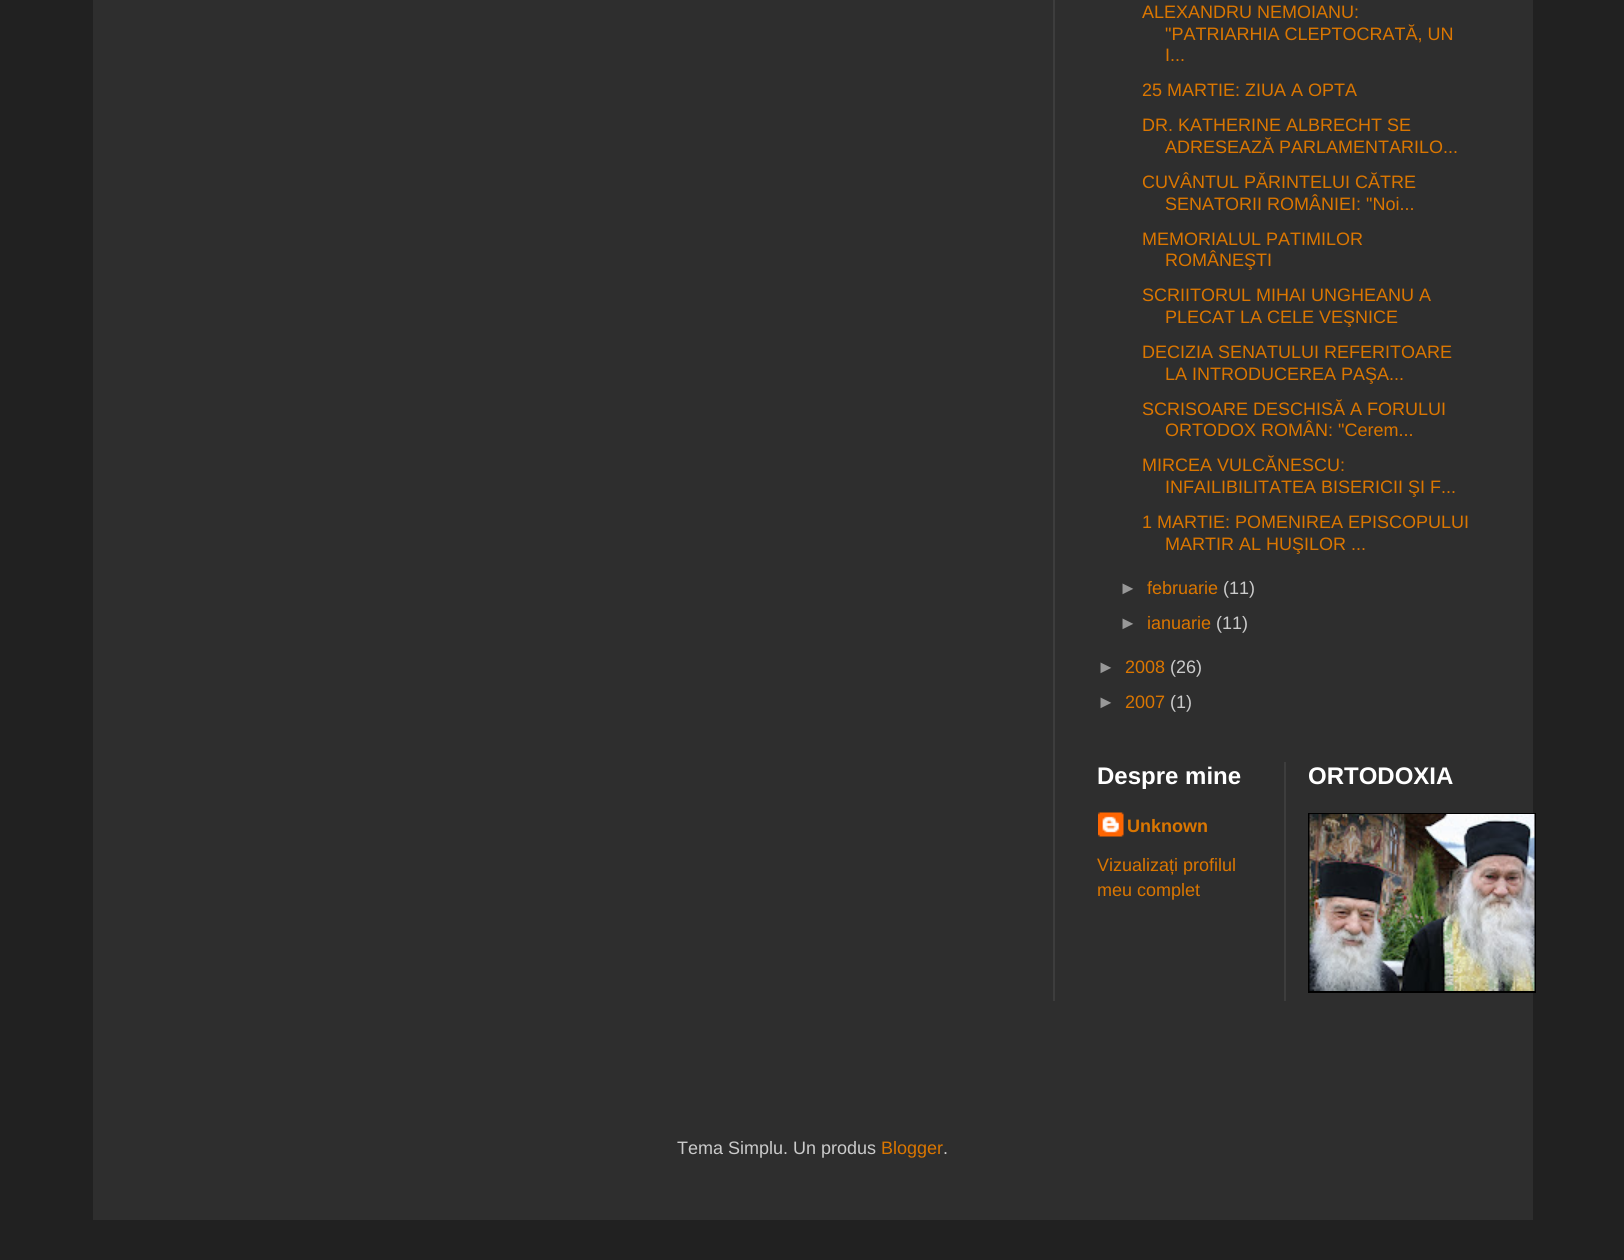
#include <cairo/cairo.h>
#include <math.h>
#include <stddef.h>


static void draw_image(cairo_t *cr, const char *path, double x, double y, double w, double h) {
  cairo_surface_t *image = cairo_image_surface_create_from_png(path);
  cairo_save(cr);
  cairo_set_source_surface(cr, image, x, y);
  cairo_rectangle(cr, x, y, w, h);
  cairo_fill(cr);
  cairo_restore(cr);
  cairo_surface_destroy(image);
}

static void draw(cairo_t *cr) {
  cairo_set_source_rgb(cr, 33 / 255.0, 33 / 255.0, 33 / 255.0);
  cairo_paint(cr);
  cairo_set_source_rgb(cr, 46 / 255.0, 46 / 255.0, 46 / 255.0);
  cairo_rectangle(cr, 93, 0, 1440, 1220);
  cairo_fill(cr);
  cairo_set_source_rgb(cr, 61 / 255.0, 61 / 255.0, 61 / 255.0);
  cairo_rectangle(cr, 1053, 0, 2, 1001);
  cairo_fill(cr);
  draw_image(cr, "images/1.png", 1098, 812, 26, 25);
  cairo_rectangle(cr, 1284, 762, 2, 239);
  cairo_fill(cr);
  cairo_set_source_rgb(cr, 0, 0, 0);
  cairo_rectangle(cr, 1308, 813, 228, 180);
  cairo_fill(cr);
  draw_image(cr, "images/2.png", 1309, 814, 226, 177);
  cairo_select_font_face(cr, "Liberation Sans", CAIRO_FONT_SLANT_NORMAL, CAIRO_FONT_WEIGHT_NORMAL);
  cairo_set_font_size(cr, 18);
  cairo_set_source_rgb(cr, 219 / 255.0, 118 / 255.0, 0);
  cairo_move_to(cr, 1142, 18);
  cairo_show_text(cr, "ALEXANDRU NEMOIANU:");
  cairo_move_to(cr, 1165, 40);
  cairo_show_text(cr, "\"PATRIARHIA CLEPTOCRATĂ, UN");
  cairo_move_to(cr, 1165, 61);
  cairo_show_text(cr, "I...");
  cairo_move_to(cr, 1142, 96);
  cairo_show_text(cr, "25 MARTIE: ZIUA A OPTA");
  cairo_move_to(cr, 1142, 131);
  cairo_show_text(cr, "DR. KATHERINE ALBRECHT SE");
  cairo_move_to(cr, 1165, 153);
  cairo_show_text(cr, "ADRESEAZĂ PARLAMENTARILO...");
  cairo_move_to(cr, 1142, 188);
  cairo_show_text(cr, "CUVÂNTUL PĂRINTELUI CĂTRE");
  cairo_move_to(cr, 1165, 210);
  cairo_show_text(cr, "SENATORII ROMÂNIEI: \"Noi...");
  cairo_move_to(cr, 1142, 245);
  cairo_show_text(cr, "MEMORIALUL PATIMILOR");
  cairo_move_to(cr, 1165, 266);
  cairo_show_text(cr, "ROMÂNEŞTI");
  cairo_move_to(cr, 1142, 301);
  cairo_show_text(cr, "SCRIITORUL MIHAI UNGHEANU A");
  cairo_move_to(cr, 1165, 323);
  cairo_show_text(cr, "PLECAT LA CELE VEŞNICE");
  cairo_move_to(cr, 1142, 358);
  cairo_show_text(cr, "DECIZIA SENATULUI REFERITOARE");
  cairo_move_to(cr, 1165, 380);
  cairo_show_text(cr, "LA INTRODUCEREA PAŞA...");
  cairo_move_to(cr, 1142, 415);
  cairo_show_text(cr, "SCRISOARE DESCHISĂ A FORULUI");
  cairo_move_to(cr, 1165, 436);
  cairo_show_text(cr, "ORTODOX ROMÂN: \"Cerem...");
  cairo_move_to(cr, 1142, 471);
  cairo_show_text(cr, "MIRCEA VULCĂNESCU:");
  cairo_move_to(cr, 1165, 493);
  cairo_show_text(cr, "INFAILIBILITATEA BISERICII ŞI F...");
  cairo_move_to(cr, 1142, 528);
  cairo_show_text(cr, "1 MARTIE: POMENIREA EPISCOPULUI");
  cairo_move_to(cr, 1165, 550);
  cairo_show_text(cr, "MARTIR AL HUŞILOR ...");
  cairo_set_source_rgb(cr, 152 / 255.0, 152 / 255.0, 152 / 255.0);
  cairo_move_to(cr, 1119, 594);
  cairo_show_text(cr, "►");
  cairo_set_source_rgb(cr, 219 / 255.0, 118 / 255.0, 0);
  cairo_move_to(cr, 1147, 594);
  cairo_show_text(cr, "februarie");
  cairo_set_source_rgb(cr, 203 / 255.0, 203 / 255.0, 203 / 255.0);
  cairo_move_to(cr, 1223, 594);
  cairo_show_text(cr, "(11)");
  cairo_set_source_rgb(cr, 152 / 255.0, 152 / 255.0, 152 / 255.0);
  cairo_move_to(cr, 1119, 629);
  cairo_show_text(cr, "►");
  cairo_set_source_rgb(cr, 219 / 255.0, 118 / 255.0, 0);
  cairo_move_to(cr, 1147, 629);
  cairo_show_text(cr, "ianuarie");
  cairo_set_source_rgb(cr, 203 / 255.0, 203 / 255.0, 203 / 255.0);
  cairo_move_to(cr, 1216, 629);
  cairo_show_text(cr, "(11)");
  cairo_set_source_rgb(cr, 152 / 255.0, 152 / 255.0, 152 / 255.0);
  cairo_move_to(cr, 1097, 673);
  cairo_show_text(cr, "►");
  cairo_set_source_rgb(cr, 219 / 255.0, 118 / 255.0, 0);
  cairo_move_to(cr, 1125, 673);
  cairo_show_text(cr, "2008");
  cairo_set_source_rgb(cr, 203 / 255.0, 203 / 255.0, 203 / 255.0);
  cairo_move_to(cr, 1170, 673);
  cairo_show_text(cr, "(26)");
  cairo_set_source_rgb(cr, 152 / 255.0, 152 / 255.0, 152 / 255.0);
  cairo_move_to(cr, 1097, 708);
  cairo_show_text(cr, "►");
  cairo_set_source_rgb(cr, 219 / 255.0, 118 / 255.0, 0);
  cairo_move_to(cr, 1125, 708);
  cairo_show_text(cr, "2007");
  cairo_set_source_rgb(cr, 203 / 255.0, 203 / 255.0, 203 / 255.0);
  cairo_move_to(cr, 1170, 708);
  cairo_show_text(cr, "(1)");
  cairo_select_font_face(cr, "Liberation Sans", CAIRO_FONT_SLANT_NORMAL, CAIRO_FONT_WEIGHT_BOLD);
  cairo_set_font_size(cr, 24);
  cairo_set_source_rgb(cr, 1, 1, 1);
  cairo_move_to(cr, 1097, 784);
  cairo_show_text(cr, "Despre mine");
  cairo_set_font_size(cr, 18);
  cairo_set_source_rgb(cr, 219 / 255.0, 118 / 255.0, 0);
  cairo_move_to(cr, 1127, 832);
  cairo_show_text(cr, "Unknown");
  cairo_select_font_face(cr, "Liberation Sans", CAIRO_FONT_SLANT_NORMAL, CAIRO_FONT_WEIGHT_NORMAL);
  cairo_move_to(cr, 1097, 871);
  cairo_show_text(cr, "Vizualizați profilul");
  cairo_move_to(cr, 1097, 896);
  cairo_show_text(cr, "meu complet");
  cairo_select_font_face(cr, "Liberation Sans", CAIRO_FONT_SLANT_NORMAL, CAIRO_FONT_WEIGHT_BOLD);
  cairo_set_font_size(cr, 24);
  cairo_set_source_rgb(cr, 1, 1, 1);
  cairo_move_to(cr, 1308, 784);
  cairo_show_text(cr, "ORTODOXIA");
  cairo_select_font_face(cr, "Liberation Sans", CAIRO_FONT_SLANT_NORMAL, CAIRO_FONT_WEIGHT_NORMAL);
  cairo_set_font_size(cr, 18);
  cairo_set_source_rgb(cr, 203 / 255.0, 203 / 255.0, 203 / 255.0);
  cairo_move_to(cr, 677, 1154);
  cairo_show_text(cr, "Tema Simplu. Un produs");
  cairo_set_source_rgb(cr, 219 / 255.0, 118 / 255.0, 0);
  cairo_move_to(cr, 881, 1154);
  cairo_show_text(cr, "Blogger");
  cairo_set_source_rgb(cr, 203 / 255.0, 203 / 255.0, 203 / 255.0);
  cairo_move_to(cr, 943, 1154);
  cairo_show_text(cr, ".");
}

int main(void) {
  cairo_surface_t *surface = cairo_image_surface_create(CAIRO_FORMAT_RGB24, 1624, 1260);
  cairo_t *cr = cairo_create(surface);
  cairo_font_options_t *options = cairo_font_options_create();
  cairo_font_options_set_hint_metrics(options, CAIRO_HINT_METRICS_OFF);
  cairo_font_options_set_hint_style(options, CAIRO_HINT_STYLE_NONE);
  cairo_set_font_options(cr, options);
  cairo_set_miter_limit(cr, 4);
  draw(cr);
  cairo_surface_write_to_png(surface, "out.png");
  cairo_font_options_destroy(options);
  cairo_destroy(cr);
  cairo_surface_destroy(surface);
  return 0;
}
